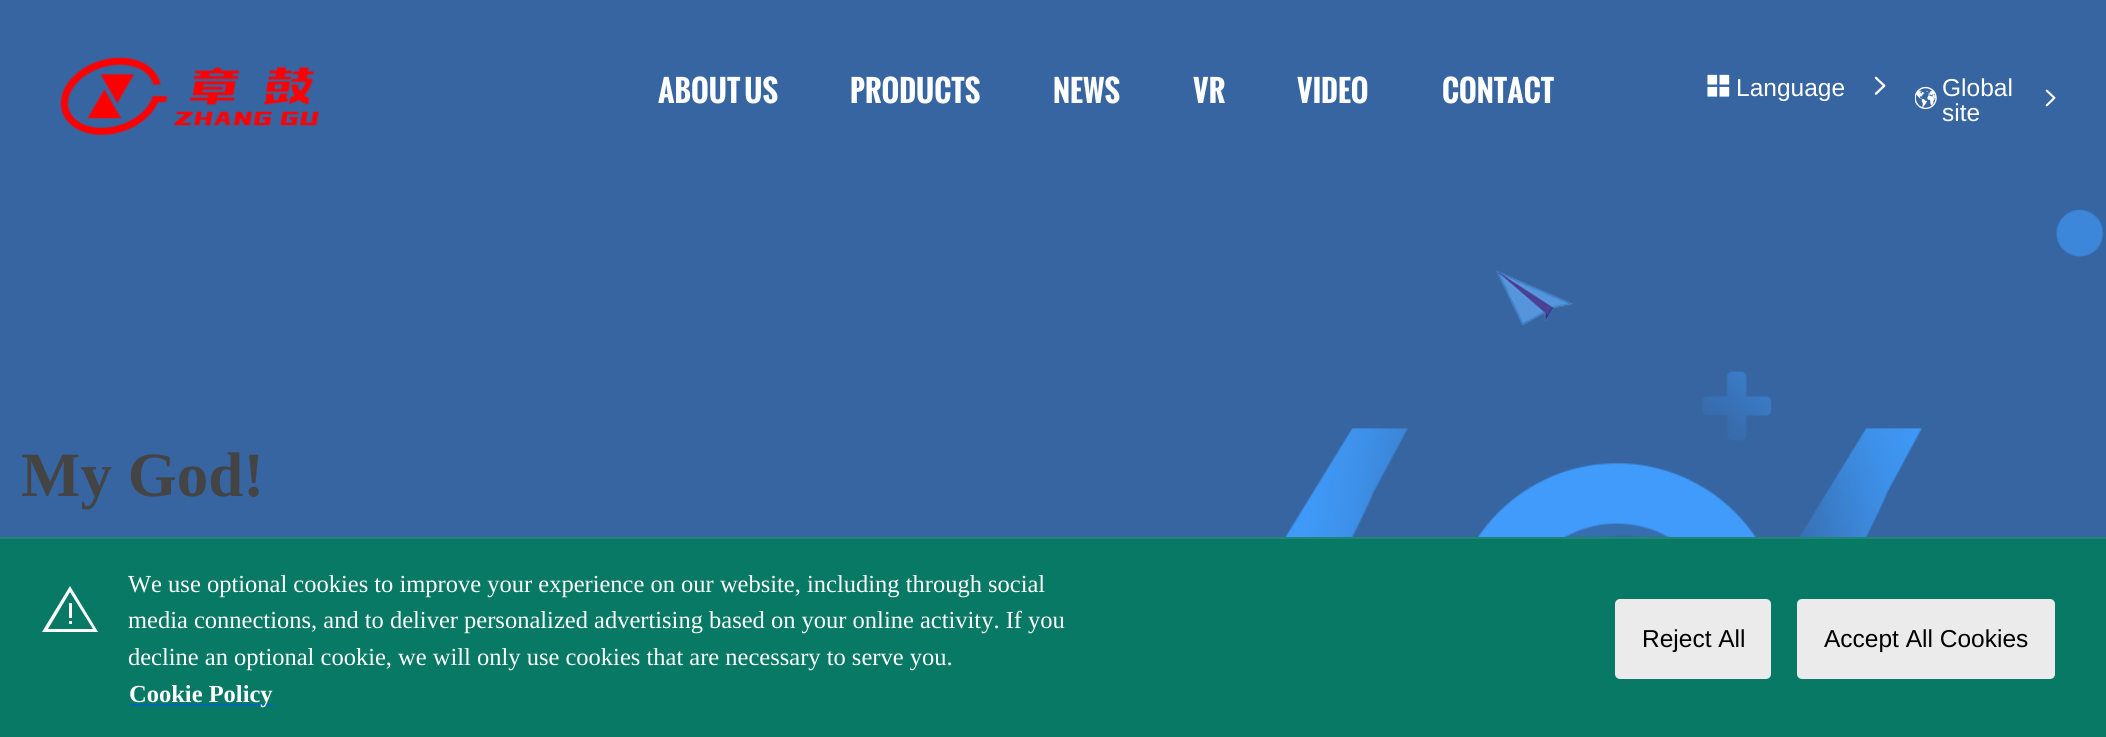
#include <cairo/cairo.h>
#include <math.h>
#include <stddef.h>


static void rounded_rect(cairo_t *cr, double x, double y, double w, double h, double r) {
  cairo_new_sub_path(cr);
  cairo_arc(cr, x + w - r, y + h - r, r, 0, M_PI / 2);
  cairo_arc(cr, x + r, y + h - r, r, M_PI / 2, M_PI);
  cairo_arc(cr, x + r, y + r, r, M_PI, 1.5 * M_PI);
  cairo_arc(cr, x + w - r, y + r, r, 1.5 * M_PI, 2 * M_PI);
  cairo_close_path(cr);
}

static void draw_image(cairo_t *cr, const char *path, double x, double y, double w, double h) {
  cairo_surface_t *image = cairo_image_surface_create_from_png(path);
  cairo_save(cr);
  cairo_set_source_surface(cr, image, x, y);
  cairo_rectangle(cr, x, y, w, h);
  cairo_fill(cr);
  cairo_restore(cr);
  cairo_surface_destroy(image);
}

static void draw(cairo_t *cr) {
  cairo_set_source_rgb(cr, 54 / 255.0, 101 / 255.0, 161 / 255.0);
  cairo_paint(cr);
  draw_image(cr, "images/1.png", 60, 57, 260, 78);
  draw_image(cr, "images/2.png", 1707, 74, 23, 23);
  draw_image(cr, "images/3.png", 1874, 76, 12, 19);
  draw_image(cr, "images/4.png", 1915, 86, 22, 24);
  draw_image(cr, "images/5.png", 2045, 89, 11, 18);
  draw_image(cr, "images/6.png", 1285, 210, 819, 327);
  cairo_set_source_rgb(cr, 7 / 255.0, 121 / 255.0, 100 / 255.0);
  cairo_rectangle(cr, 0, 539, 2106, 198);
  cairo_fill(cr);
  cairo_set_source_rgb(cr, 32 / 255.0, 134 / 255.0, 116 / 255.0);
  cairo_rectangle(cr, 0, 537, 2106, 2);
  cairo_fill(cr);
  cairo_set_source_rgb(cr, 1, 1, 1);
  cairo_new_path(cr);
  cairo_move_to(cr, 70, 586);
  cairo_line_to(cr, 98, 632);
  cairo_line_to(cr, 42, 632);
  cairo_close_path(cr);
  cairo_move_to(cr, 48, 629);
  cairo_line_to(cr, 93, 629);
  cairo_line_to(cr, 70, 592);
  cairo_close_path(cr);
  cairo_move_to(cr, 69, 603);
  cairo_line_to(cr, 72, 603);
  cairo_line_to(cr, 72, 618);
  cairo_line_to(cr, 69, 618);
  cairo_close_path(cr);
  cairo_move_to(cr, 69, 621);
  cairo_line_to(cr, 72, 621);
  cairo_line_to(cr, 72, 624);
  cairo_line_to(cr, 69, 624);
  cairo_close_path(cr);
  cairo_fill(cr);
  cairo_set_source_rgb(cr, 0, 103 / 255.0, 184 / 255.0);
  cairo_rectangle(cr, 130, 704, 143, 2);
  cairo_fill(cr);
  cairo_set_source_rgb(cr, 235 / 255.0, 235 / 255.0, 235 / 255.0);
  rounded_rect(cr, 1615, 599, 156, 80, 5);
  cairo_fill(cr);
  rounded_rect(cr, 1797, 599, 258, 80, 5);
  cairo_fill(cr);
  cairo_select_font_face(cr, "Oswald", CAIRO_FONT_SLANT_NORMAL, CAIRO_FONT_WEIGHT_BOLD);
  cairo_set_font_size(cr, 29.75);
  cairo_set_source_rgb(cr, 1, 1, 1);
  cairo_move_to(cr, 658, 103);
  cairo_show_text(cr, "ABOUT US");
  cairo_move_to(cr, 850, 103);
  cairo_show_text(cr, "PRODUCTS");
  cairo_move_to(cr, 1053, 103);
  cairo_show_text(cr, "NEWS");
  cairo_move_to(cr, 1193, 103);
  cairo_show_text(cr, "VR");
  cairo_move_to(cr, 1297, 103);
  cairo_show_text(cr, "VIDEO");
  cairo_move_to(cr, 1442, 103);
  cairo_show_text(cr, "CONTACT");
  cairo_select_font_face(cr, "Liberation Sans", CAIRO_FONT_SLANT_NORMAL, CAIRO_FONT_WEIGHT_NORMAL);
  cairo_set_font_size(cr, 24.5);
  cairo_move_to(cr, 1736, 96);
  cairo_show_text(cr, "Language");
  cairo_move_to(cr, 1942, 96);
  cairo_show_text(cr, "Global");
  cairo_move_to(cr, 1942, 121);
  cairo_show_text(cr, "site");
  cairo_select_font_face(cr, "Liberation Serif", CAIRO_FONT_SLANT_NORMAL, CAIRO_FONT_WEIGHT_BOLD);
  cairo_set_font_size(cr, 63);
  cairo_set_source_rgb(cr, 68 / 255.0, 68 / 255.0, 68 / 255.0);
  cairo_move_to(cr, 21, 496);
  cairo_show_text(cr, "My God!");
  cairo_select_font_face(cr, "Liberation Serif", CAIRO_FONT_SLANT_NORMAL, CAIRO_FONT_WEIGHT_NORMAL);
  cairo_set_font_size(cr, 24.5);
  cairo_set_source_rgb(cr, 1, 1, 1);
  cairo_move_to(cr, 128, 592);
  cairo_show_text(cr, "We use optional cookies to improve your experience on our website, including through social");
  cairo_move_to(cr, 128, 628);
  cairo_show_text(cr, "media connections, and to deliver personalized advertising based on your online activity. If you");
  cairo_move_to(cr, 128, 665);
  cairo_show_text(cr, "decline an optional cookie, we will only use cookies that are necessary to serve you.");
  cairo_select_font_face(cr, "Liberation Serif", CAIRO_FONT_SLANT_NORMAL, CAIRO_FONT_WEIGHT_BOLD);
  cairo_move_to(cr, 129, 702);
  cairo_show_text(cr, "Cookie Policy");
  cairo_select_font_face(cr, "Liberation Sans", CAIRO_FONT_SLANT_NORMAL, CAIRO_FONT_WEIGHT_NORMAL);
  cairo_set_source_rgb(cr, 0, 0, 0);
  cairo_move_to(cr, 1642, 647);
  cairo_show_text(cr, "Reject All");
  cairo_move_to(cr, 1824, 647);
  cairo_show_text(cr, "Accept All Cookies");
}

int main(void) {
  cairo_surface_t *surface = cairo_image_surface_create(CAIRO_FORMAT_RGB24, 2106, 737);
  cairo_t *cr = cairo_create(surface);
  cairo_font_options_t *options = cairo_font_options_create();
  cairo_font_options_set_hint_metrics(options, CAIRO_HINT_METRICS_OFF);
  cairo_font_options_set_hint_style(options, CAIRO_HINT_STYLE_NONE);
  cairo_set_font_options(cr, options);
  cairo_set_miter_limit(cr, 4);
  draw(cr);
  cairo_surface_write_to_png(surface, "out.png");
  cairo_font_options_destroy(options);
  cairo_destroy(cr);
  cairo_surface_destroy(surface);
  return 0;
}
